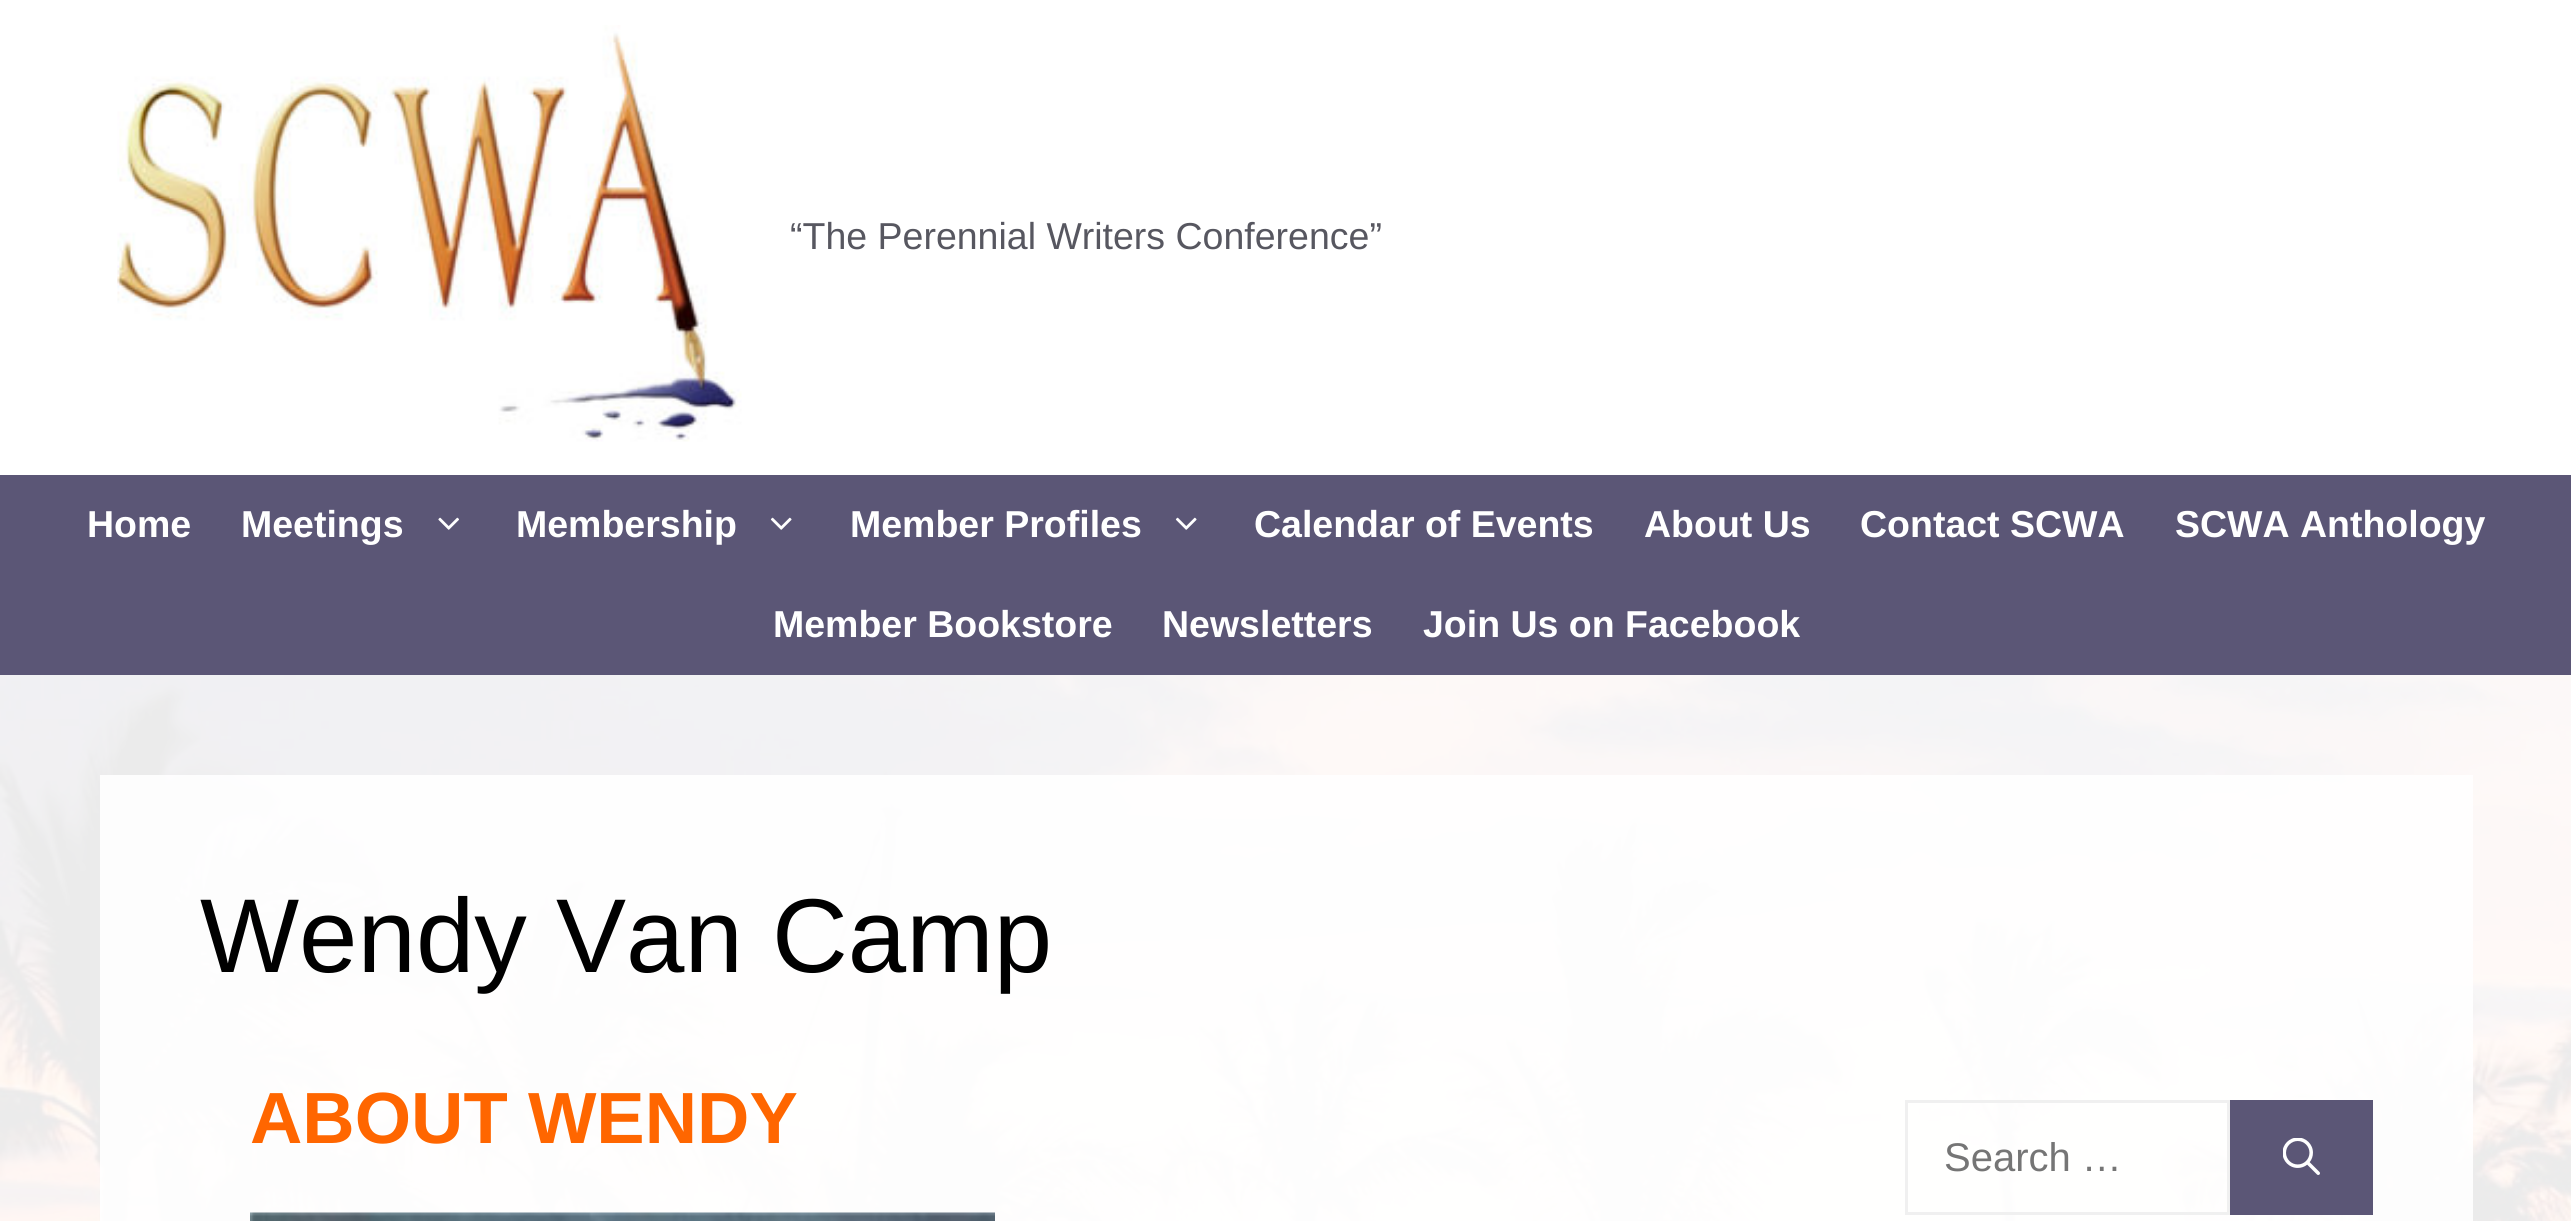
#include <cairo/cairo.h>
#include <math.h>
#include <stddef.h>


static void draw_image(cairo_t *cr, const char *path, double x, double y, double w, double h) {
  cairo_surface_t *image = cairo_image_surface_create_from_png(path);
  cairo_save(cr);
  cairo_set_source_surface(cr, image, x, y);
  cairo_rectangle(cr, x, y, w, h);
  cairo_fill(cr);
  cairo_restore(cr);
  cairo_surface_destroy(image);
}

static void draw(cairo_t *cr) {
  cairo_set_source_rgb(cr, 1, 1, 1);
  cairo_paint(cr);
  draw_image(cr, "images/1.png", 0, 675, 2571, 546);
  draw_image(cr, "images/2.png", 117, 25, 625, 417);
  cairo_set_source_rgb(cr, 91 / 255.0, 86 / 255.0, 118 / 255.0);
  cairo_rectangle(cr, 0, 475, 2571, 200);
  cairo_fill(cr);
  draw_image(cr, "images/3.png", 438, 517, 21, 13);
  draw_image(cr, "images/4.png", 770, 517, 22, 13);
  draw_image(cr, "images/4.png", 1175, 517, 22, 13);
  cairo_set_source_rgba(cr, 1, 1, 1, 0.92);
  cairo_rectangle(cr, 0, 675, 2571, 546);
  cairo_fill(cr);
  cairo_set_source_rgba(cr, 1, 1, 1, 0.9);
  cairo_rectangle(cr, 100, 775, 2373, 446);
  cairo_fill(cr);
  draw_image(cr, "images/5.png", 250, 1212, 745, 9);
  cairo_rectangle(cr, 1906.5, 1101.5, 322, 112);
  cairo_set_source_rgb(cr, 240 / 255.0, 240 / 255.0, 240 / 255.0);
  cairo_set_line_width(cr, 3);
  cairo_stroke(cr);
  cairo_set_source_rgb(cr, 91 / 255.0, 86 / 255.0, 118 / 255.0);
  cairo_rectangle(cr, 2230, 1100, 143, 115);
  cairo_fill(cr);
  draw_image(cr, "images/6.png", 2283, 1138, 37, 37);
  cairo_select_font_face(cr, "Liberation Sans", CAIRO_FONT_SLANT_NORMAL, CAIRO_FONT_WEIGHT_NORMAL);
  cairo_set_font_size(cr, 37.5);
  cairo_set_source_rgb(cr, 87 / 255.0, 87 / 255.0, 96 / 255.0);
  cairo_move_to(cr, 790, 249);
  cairo_show_text(cr, "“The Perennial Writers Conference”");
  cairo_select_font_face(cr, "Liberation Sans", CAIRO_FONT_SLANT_NORMAL, CAIRO_FONT_WEIGHT_BOLD);
  cairo_set_source_rgb(cr, 1, 1, 1);
  cairo_move_to(cr, 87, 537);
  cairo_show_text(cr, "Home");
  cairo_move_to(cr, 241, 537);
  cairo_show_text(cr, "Meetings");
  cairo_move_to(cr, 516, 537);
  cairo_show_text(cr, "Membership");
  cairo_move_to(cr, 850, 537);
  cairo_show_text(cr, "Member Profiles");
  cairo_move_to(cr, 1254, 537);
  cairo_show_text(cr, "Calendar of Events");
  cairo_move_to(cr, 1644, 537);
  cairo_show_text(cr, "About Us");
  cairo_move_to(cr, 1860, 537);
  cairo_show_text(cr, "Contact SCWA");
  cairo_move_to(cr, 2175, 537);
  cairo_show_text(cr, "SCWA Anthology");
  cairo_move_to(cr, 773, 637);
  cairo_show_text(cr, "Member Bookstore");
  cairo_move_to(cr, 1162, 637);
  cairo_show_text(cr, "Newsletters");
  cairo_move_to(cr, 1423, 637);
  cairo_show_text(cr, "Join Us on Facebook");
  cairo_select_font_face(cr, "Liberation Sans", CAIRO_FONT_SLANT_NORMAL, CAIRO_FONT_WEIGHT_NORMAL);
  cairo_set_font_size(cr, 105);
  cairo_set_source_rgb(cr, 0, 0, 0);
  cairo_move_to(cr, 200, 972);
  cairo_show_text(cr, "Wendy Van Camp");
  cairo_select_font_face(cr, "Liberation Sans", CAIRO_FONT_SLANT_NORMAL, CAIRO_FONT_WEIGHT_BOLD);
  cairo_set_font_size(cr, 72.5);
  cairo_set_source_rgb(cr, 1, 102 / 255.0, 0);
  cairo_move_to(cr, 250, 1143);
  cairo_show_text(cr, "ABOUT WENDY");
  cairo_select_font_face(cr, "Liberation Sans", CAIRO_FONT_SLANT_NORMAL, CAIRO_FONT_WEIGHT_NORMAL);
  cairo_set_font_size(cr, 40);
  cairo_set_source_rgb(cr, 117 / 255.0, 117 / 255.0, 117 / 255.0);
  cairo_move_to(cr, 1944, 1171);
  cairo_show_text(cr, "Search …");
}

int main(void) {
  cairo_surface_t *surface = cairo_image_surface_create(CAIRO_FORMAT_RGB24, 2571, 1221);
  cairo_t *cr = cairo_create(surface);
  cairo_font_options_t *options = cairo_font_options_create();
  cairo_font_options_set_hint_metrics(options, CAIRO_HINT_METRICS_OFF);
  cairo_font_options_set_hint_style(options, CAIRO_HINT_STYLE_NONE);
  cairo_set_font_options(cr, options);
  cairo_set_miter_limit(cr, 4);
  draw(cr);
  cairo_surface_write_to_png(surface, "out.png");
  cairo_font_options_destroy(options);
  cairo_destroy(cr);
  cairo_surface_destroy(surface);
  return 0;
}
